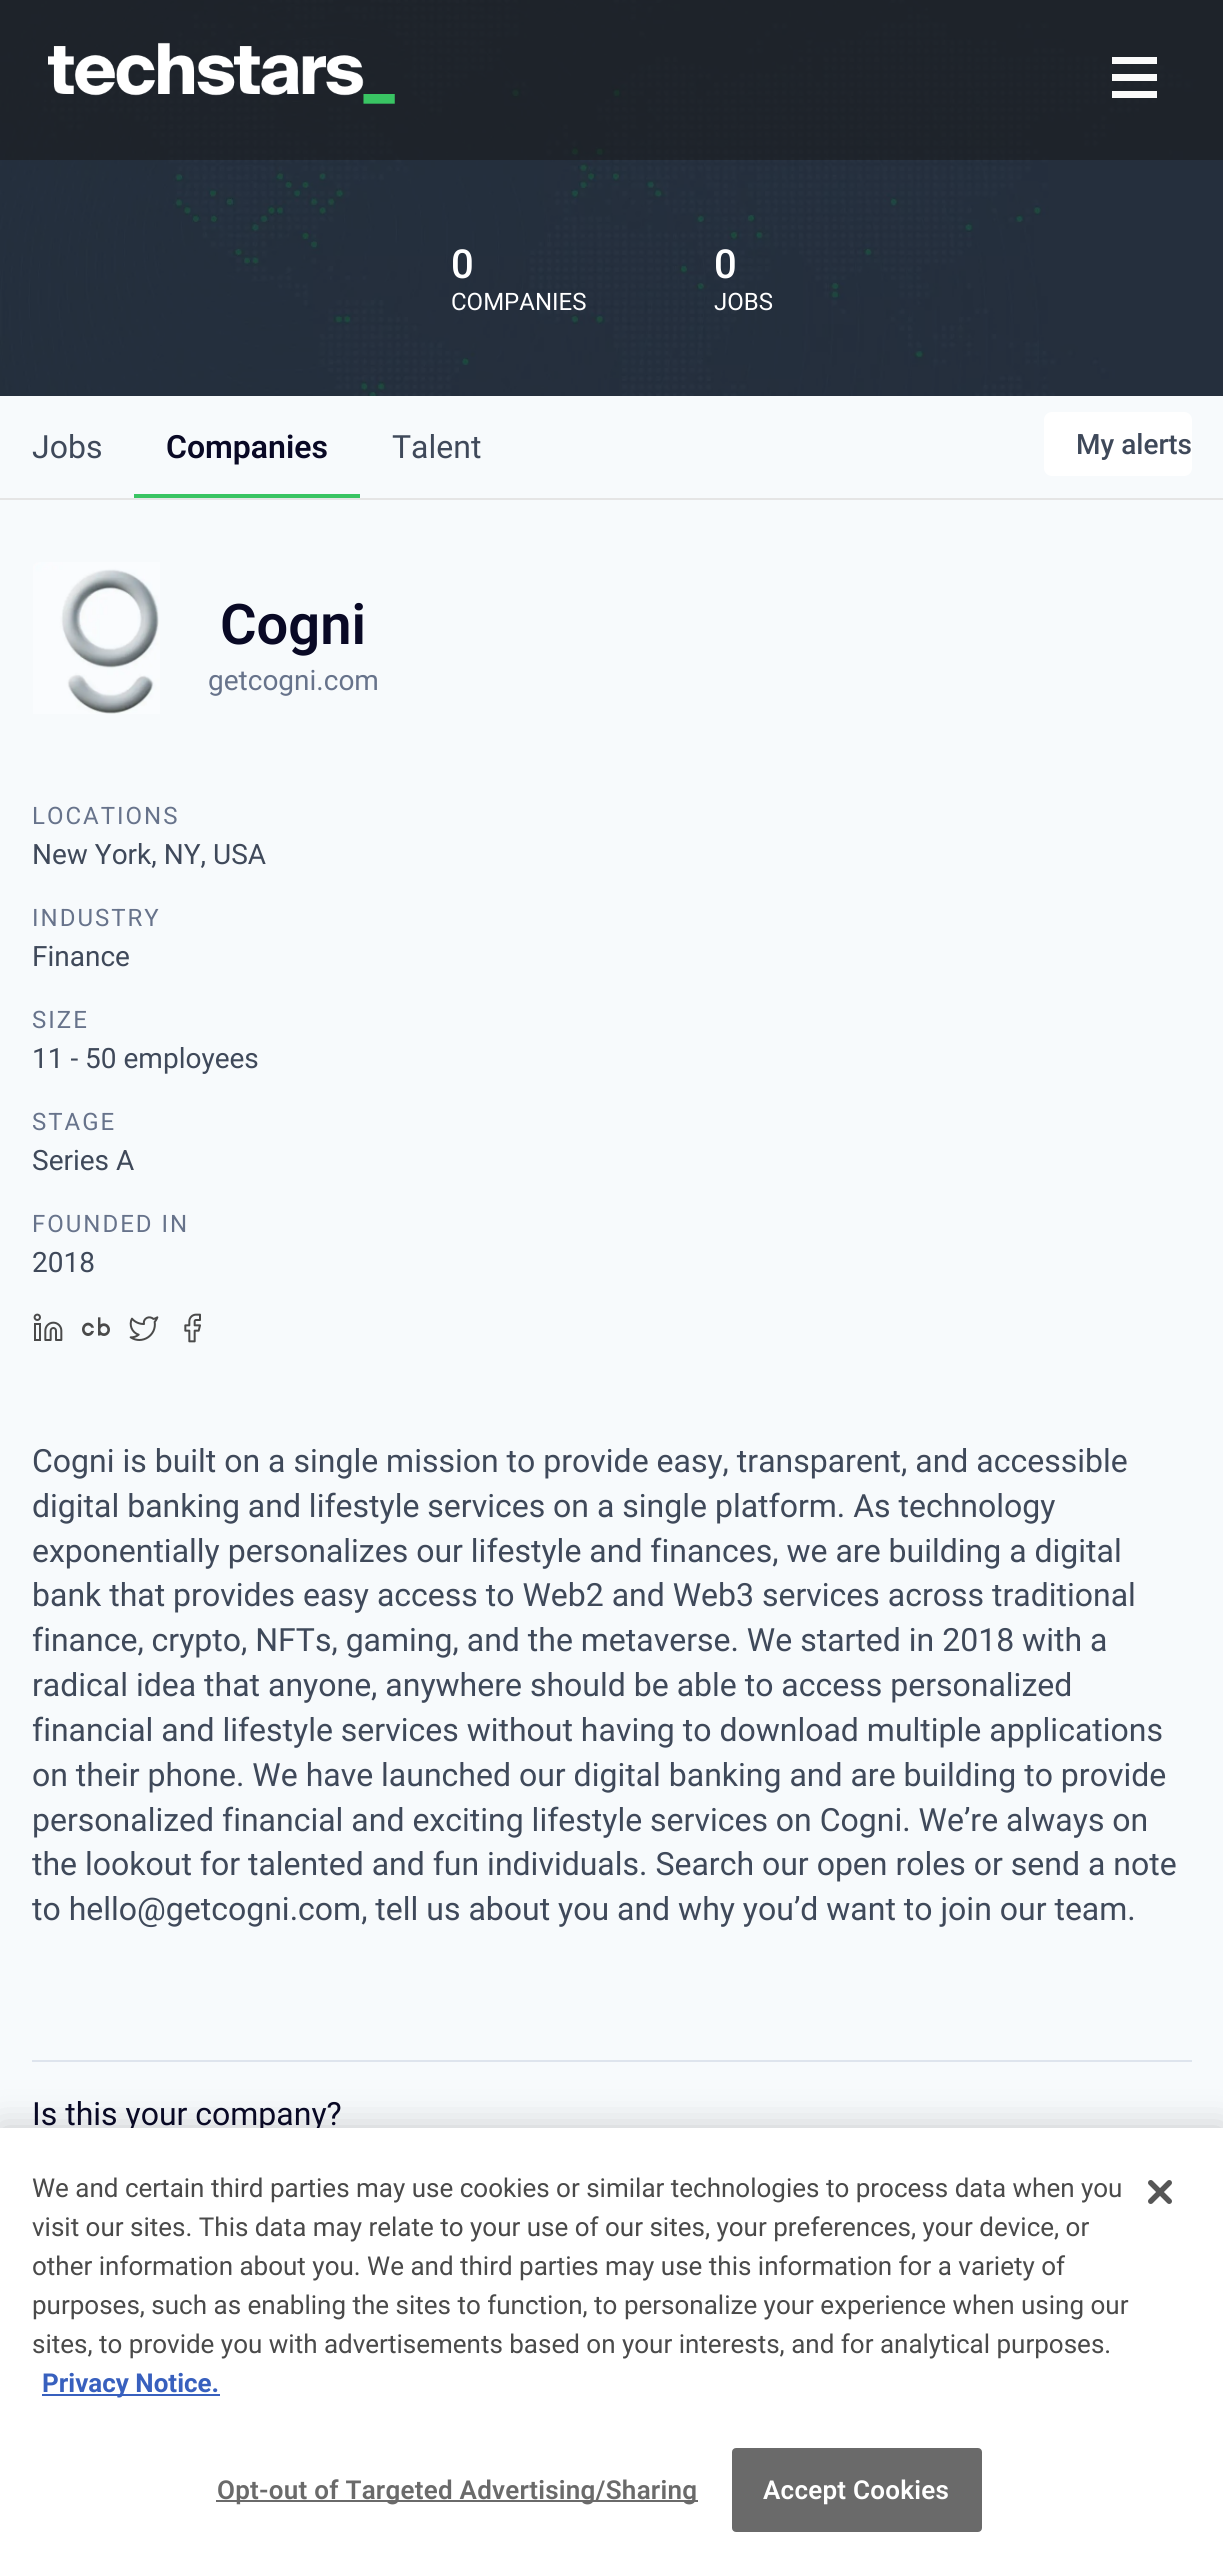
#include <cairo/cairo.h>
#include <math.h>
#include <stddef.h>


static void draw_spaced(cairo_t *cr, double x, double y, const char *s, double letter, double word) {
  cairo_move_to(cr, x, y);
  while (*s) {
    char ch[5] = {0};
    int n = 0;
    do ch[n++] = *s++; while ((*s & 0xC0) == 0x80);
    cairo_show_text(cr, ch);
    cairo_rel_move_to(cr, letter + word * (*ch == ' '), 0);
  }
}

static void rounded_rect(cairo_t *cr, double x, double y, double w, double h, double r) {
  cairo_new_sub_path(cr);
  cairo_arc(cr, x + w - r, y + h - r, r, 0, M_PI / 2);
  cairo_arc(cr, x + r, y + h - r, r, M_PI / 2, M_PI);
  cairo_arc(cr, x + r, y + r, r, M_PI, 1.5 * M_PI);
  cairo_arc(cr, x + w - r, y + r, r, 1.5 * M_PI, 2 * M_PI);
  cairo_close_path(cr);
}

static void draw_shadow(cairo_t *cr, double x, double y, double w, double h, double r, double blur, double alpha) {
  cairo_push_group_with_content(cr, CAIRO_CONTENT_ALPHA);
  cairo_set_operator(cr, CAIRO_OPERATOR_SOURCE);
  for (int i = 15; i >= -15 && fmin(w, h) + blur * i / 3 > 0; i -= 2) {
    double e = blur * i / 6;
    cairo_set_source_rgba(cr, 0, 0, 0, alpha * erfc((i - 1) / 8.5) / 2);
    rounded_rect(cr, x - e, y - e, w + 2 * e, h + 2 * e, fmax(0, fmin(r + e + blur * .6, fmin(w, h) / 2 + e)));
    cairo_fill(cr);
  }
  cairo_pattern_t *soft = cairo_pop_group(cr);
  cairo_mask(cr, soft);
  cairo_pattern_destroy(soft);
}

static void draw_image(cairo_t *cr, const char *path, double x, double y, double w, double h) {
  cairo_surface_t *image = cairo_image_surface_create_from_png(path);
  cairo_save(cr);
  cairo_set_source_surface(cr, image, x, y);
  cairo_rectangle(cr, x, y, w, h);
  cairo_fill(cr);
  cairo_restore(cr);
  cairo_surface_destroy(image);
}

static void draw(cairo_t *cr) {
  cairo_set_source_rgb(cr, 247 / 255.0, 250 / 255.0, 252 / 255.0);
  cairo_paint(cr);
  draw_image(cr, "images/2.png", 0, 0, 1223, 396);
  cairo_set_source_rgba(cr, 25 / 255.0, 25 / 255.0, 25 / 255.0, 0.5);
  cairo_rectangle(cr, 0, 0, 1223, 160);
  cairo_fill(cr);
  draw_image(cr, "images/1.png", 48, 42, 347, 62);
  cairo_set_source_rgb(cr, 250 / 255.0, 250 / 255.0, 250 / 255.0);
  cairo_new_path(cr);
  cairo_move_to(cr, 1112, 57);
  cairo_line_to(cr, 1157, 57);
  cairo_line_to(cr, 1157, 64);
  cairo_line_to(cr, 1112, 64);
  cairo_close_path(cr);
  cairo_move_to(cr, 1112, 74);
  cairo_line_to(cr, 1157, 74);
  cairo_line_to(cr, 1157, 81);
  cairo_line_to(cr, 1112, 81);
  cairo_close_path(cr);
  cairo_move_to(cr, 1112, 91);
  cairo_line_to(cr, 1157, 91);
  cairo_line_to(cr, 1157, 98);
  cairo_line_to(cr, 1112, 98);
  cairo_close_path(cr);
  cairo_fill(cr);
  cairo_set_source_rgb(cr, 229 / 255.0, 229 / 255.0, 229 / 255.0);
  cairo_rectangle(cr, 0, 498, 1223, 2);
  cairo_fill(cr);
  cairo_set_source_rgb(cr, 57 / 255.0, 196 / 255.0, 99 / 255.0);
  cairo_rectangle(cr, 134, 494, 226, 4);
  cairo_fill(cr);
  cairo_set_source_rgb(cr, 1, 1, 1);
  rounded_rect(cr, 1044, 412, 148, 64, 8);
  cairo_fill(cr);
  draw_image(cr, "images/3.png", 33, 562, 127, 152);
  draw_image(cr, "images/4.png", 33, 1313, 30, 28);
  draw_image(cr, "images/5.png", 82, 1317, 28, 19);
  draw_image(cr, "images/6.png", 129, 1316, 30, 25);
  draw_image(cr, "images/7.png", 184, 1313, 17, 30);
  cairo_set_source_rgb(cr, 222 / 255.0, 228 / 255.0, 237 / 255.0);
  cairo_rectangle(cr, 32, 2060, 1160, 2);
  cairo_fill(cr);
  cairo_set_source_rgb(cr, 0, 0, 0);
  draw_shadow(cr, 0, 2128, 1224, 436, 0, 18, 0.2);
  cairo_select_font_face(cr, "Roboto Medium", CAIRO_FONT_SLANT_NORMAL, CAIRO_FONT_WEIGHT_NORMAL);
  cairo_set_font_size(cr, 40);
  cairo_set_source_rgb(cr, 1, 1, 1);
  cairo_move_to(cr, 451, 278);
  cairo_show_text(cr, "0");
  cairo_select_font_face(cr, "Roboto", CAIRO_FONT_SLANT_NORMAL, CAIRO_FONT_WEIGHT_NORMAL);
  cairo_set_font_size(cr, 24);
  cairo_move_to(cr, 451, 310);
  cairo_show_text(cr, "COMPANIES");
  cairo_select_font_face(cr, "Roboto Medium", CAIRO_FONT_SLANT_NORMAL, CAIRO_FONT_WEIGHT_NORMAL);
  cairo_set_font_size(cr, 40);
  cairo_move_to(cr, 714, 278);
  cairo_show_text(cr, "0");
  cairo_select_font_face(cr, "Roboto", CAIRO_FONT_SLANT_NORMAL, CAIRO_FONT_WEIGHT_NORMAL);
  cairo_set_font_size(cr, 24);
  cairo_move_to(cr, 714, 310);
  cairo_show_text(cr, "JOBS");
  cairo_set_font_size(cr, 32);
  cairo_set_source_rgb(cr, 63 / 255.0, 73 / 255.0, 90 / 255.0);
  cairo_move_to(cr, 32, 458);
  cairo_show_text(cr, "Jobs");
  cairo_select_font_face(cr, "Roboto SemiBold", CAIRO_FONT_SLANT_NORMAL, CAIRO_FONT_WEIGHT_NORMAL);
  cairo_set_source_rgb(cr, 9 / 255.0, 9 / 255.0, 37 / 255.0);
  cairo_move_to(cr, 166, 458);
  cairo_show_text(cr, "Companies");
  cairo_select_font_face(cr, "Roboto", CAIRO_FONT_SLANT_NORMAL, CAIRO_FONT_WEIGHT_NORMAL);
  cairo_set_source_rgb(cr, 63 / 255.0, 73 / 255.0, 90 / 255.0);
  cairo_move_to(cr, 392, 458);
  cairo_show_text(cr, "Talent");
  cairo_select_font_face(cr, "Roboto Medium", CAIRO_FONT_SLANT_NORMAL, CAIRO_FONT_WEIGHT_NORMAL);
  cairo_set_font_size(cr, 28);
  cairo_move_to(cr, 1076, 454);
  cairo_show_text(cr, "My alerts");
  cairo_select_font_face(cr, "Roboto SemiBold", CAIRO_FONT_SLANT_NORMAL, CAIRO_FONT_WEIGHT_NORMAL);
  cairo_set_font_size(cr, 56);
  cairo_set_source_rgb(cr, 9 / 255.0, 9 / 255.0, 37 / 255.0);
  cairo_move_to(cr, 220, 644);
  cairo_show_text(cr, "Cogni");
  cairo_select_font_face(cr, "Roboto", CAIRO_FONT_SLANT_NORMAL, CAIRO_FONT_WEIGHT_NORMAL);
  cairo_set_font_size(cr, 28);
  cairo_set_source_rgb(cr, 103 / 255.0, 115 / 255.0, 139 / 255.0);
  cairo_move_to(cr, 208, 690);
  cairo_show_text(cr, "getcogni.com");
  cairo_set_font_size(cr, 24);
  draw_spaced(cr, 32, 824, "LOCATIONS", 2, 0);
  cairo_set_font_size(cr, 28);
  cairo_set_source_rgb(cr, 63 / 255.0, 73 / 255.0, 90 / 255.0);
  cairo_move_to(cr, 32, 864);
  cairo_show_text(cr, "New York, NY, USA");
  cairo_set_font_size(cr, 24);
  cairo_set_source_rgb(cr, 103 / 255.0, 115 / 255.0, 139 / 255.0);
  draw_spaced(cr, 32, 926, "INDUSTRY", 2, 0);
  cairo_set_font_size(cr, 28);
  cairo_set_source_rgb(cr, 63 / 255.0, 73 / 255.0, 90 / 255.0);
  cairo_move_to(cr, 32, 966);
  cairo_show_text(cr, "Finance");
  cairo_set_font_size(cr, 24);
  cairo_set_source_rgb(cr, 103 / 255.0, 115 / 255.0, 139 / 255.0);
  draw_spaced(cr, 32, 1028, "SIZE", 2, 0);
  cairo_set_font_size(cr, 28);
  cairo_set_source_rgb(cr, 63 / 255.0, 73 / 255.0, 90 / 255.0);
  cairo_move_to(cr, 32, 1068);
  cairo_show_text(cr, "11 - 50 employees");
  cairo_set_font_size(cr, 24);
  cairo_set_source_rgb(cr, 103 / 255.0, 115 / 255.0, 139 / 255.0);
  draw_spaced(cr, 32, 1130, "STAGE", 2, 0);
  cairo_set_font_size(cr, 28);
  cairo_set_source_rgb(cr, 63 / 255.0, 73 / 255.0, 90 / 255.0);
  cairo_move_to(cr, 32, 1170);
  cairo_show_text(cr, "Series A");
  cairo_set_font_size(cr, 24);
  cairo_set_source_rgb(cr, 103 / 255.0, 115 / 255.0, 139 / 255.0);
  draw_spaced(cr, 32, 1232, "FOUNDED IN", 2, 0);
  cairo_set_font_size(cr, 28);
  cairo_set_source_rgb(cr, 63 / 255.0, 73 / 255.0, 90 / 255.0);
  cairo_move_to(cr, 32, 1272);
  cairo_show_text(cr, "2018");
  cairo_set_font_size(cr, 32);
  cairo_move_to(cr, 32, 1472);
  cairo_show_text(cr, "Cogni is built on a single mission to provide easy, transparent, and accessible");
  cairo_move_to(cr, 32, 1517);
  cairo_show_text(cr, "digital banking and lifestyle services on a single platform. As technology");
  cairo_move_to(cr, 32, 1562);
  cairo_show_text(cr, "exponentially personalizes our lifestyle and finances, we are building a digital");
  cairo_move_to(cr, 32, 1606);
  cairo_show_text(cr, "bank that provides easy access to Web2 and Web3 services across traditional");
  cairo_move_to(cr, 32, 1651);
  cairo_show_text(cr, "finance, crypto, NFTs, gaming, and the metaverse. We started in 2018 with a");
  cairo_move_to(cr, 32, 1696);
  cairo_show_text(cr, "radical idea that anyone, anywhere should be able to access personalized");
  cairo_move_to(cr, 32, 1741);
  cairo_show_text(cr, "financial and lifestyle services without having to download multiple applications");
  cairo_move_to(cr, 32, 1786);
  cairo_show_text(cr, "on their phone. We have launched our digital banking and are building to provide");
  cairo_move_to(cr, 32, 1831);
  cairo_show_text(cr, "personalized financial and exciting lifestyle services on Cogni. We’re always on");
  cairo_move_to(cr, 32, 1875);
  cairo_show_text(cr, "the lookout for talented and fun individuals. Search our open roles or send a note");
  cairo_move_to(cr, 32, 1920);
  cairo_show_text(cr, "to hello@getcogni.com, tell us about you and why you’d want to join our team.");
  cairo_set_source_rgb(cr, 9 / 255.0, 9 / 255.0, 37 / 255.0);
  cairo_move_to(cr, 32, 2125);
  cairo_show_text(cr, "Is this your company?");
  cairo_set_source_rgb(cr, 1, 1, 1);
  cairo_rectangle(cr, 0, 2128, 1223, 436);
  cairo_fill(cr);
  cairo_set_font_size(cr, 26);
  cairo_set_source_rgb(cr, 74 / 255.0, 74 / 255.0, 74 / 255.0);
  cairo_move_to(cr, 32, 2197);
  cairo_show_text(cr, "We and certain third parties may use cookies or similar technologies to process data when you");
  cairo_move_to(cr, 32, 2236);
  cairo_show_text(cr, "visit our sites. This data may relate to your use of our sites, your preferences, your device, or");
  cairo_move_to(cr, 32, 2275);
  cairo_show_text(cr, "other information about you. We and third parties may use this information for a variety of");
  cairo_move_to(cr, 32, 2314);
  cairo_show_text(cr, "purposes, such as enabling the sites to function, to personalize your experience when using our");
  cairo_move_to(cr, 32, 2353);
  cairo_show_text(cr, "sites, to provide you with advertisements based on your interests, and for analytical purposes.");
  cairo_set_source_rgb(cr, 56 / 255.0, 96 / 255.0, 190 / 255.0);
  cairo_rectangle(cr, 42, 2394, 178, 2);
  cairo_fill(cr);
  cairo_select_font_face(cr, "Roboto", CAIRO_FONT_SLANT_NORMAL, CAIRO_FONT_WEIGHT_BOLD);
  cairo_move_to(cr, 42, 2392);
  cairo_show_text(cr, "Privacy Notice.");
  cairo_set_source_rgb(cr, 106 / 255.0, 106 / 255.0, 106 / 255.0);
  cairo_rectangle(cr, 216, 2500, 482, 2);
  cairo_fill(cr);
  cairo_select_font_face(cr, "Roboto SemiBold", CAIRO_FONT_SLANT_NORMAL, CAIRO_FONT_WEIGHT_NORMAL);
  draw_spaced(cr, 217, 2499, "Opt-out of Targeted Advertising/Sharing", 0.25, 0);
  rounded_rect(cr, 733, 2449, 248, 82, 3);
  cairo_fill_preserve(cr);
  cairo_stroke(cr);
  cairo_set_source_rgb(cr, 1, 1, 1);
  draw_spaced(cr, 763, 2499, "Accept Cookies", 0.25, 0);
  draw_image(cr, "images/8.png", 1148, 2180, 24, 24);
}

int main(void) {
  cairo_surface_t *surface = cairo_image_surface_create(CAIRO_FORMAT_RGB24, 1223, 2564);
  cairo_t *cr = cairo_create(surface);
  cairo_font_options_t *options = cairo_font_options_create();
  cairo_font_options_set_hint_metrics(options, CAIRO_HINT_METRICS_OFF);
  cairo_font_options_set_hint_style(options, CAIRO_HINT_STYLE_NONE);
  cairo_set_font_options(cr, options);
  cairo_set_miter_limit(cr, 4);
  draw(cr);
  cairo_surface_write_to_png(surface, "out.png");
  cairo_font_options_destroy(options);
  cairo_destroy(cr);
  cairo_surface_destroy(surface);
  return 0;
}
